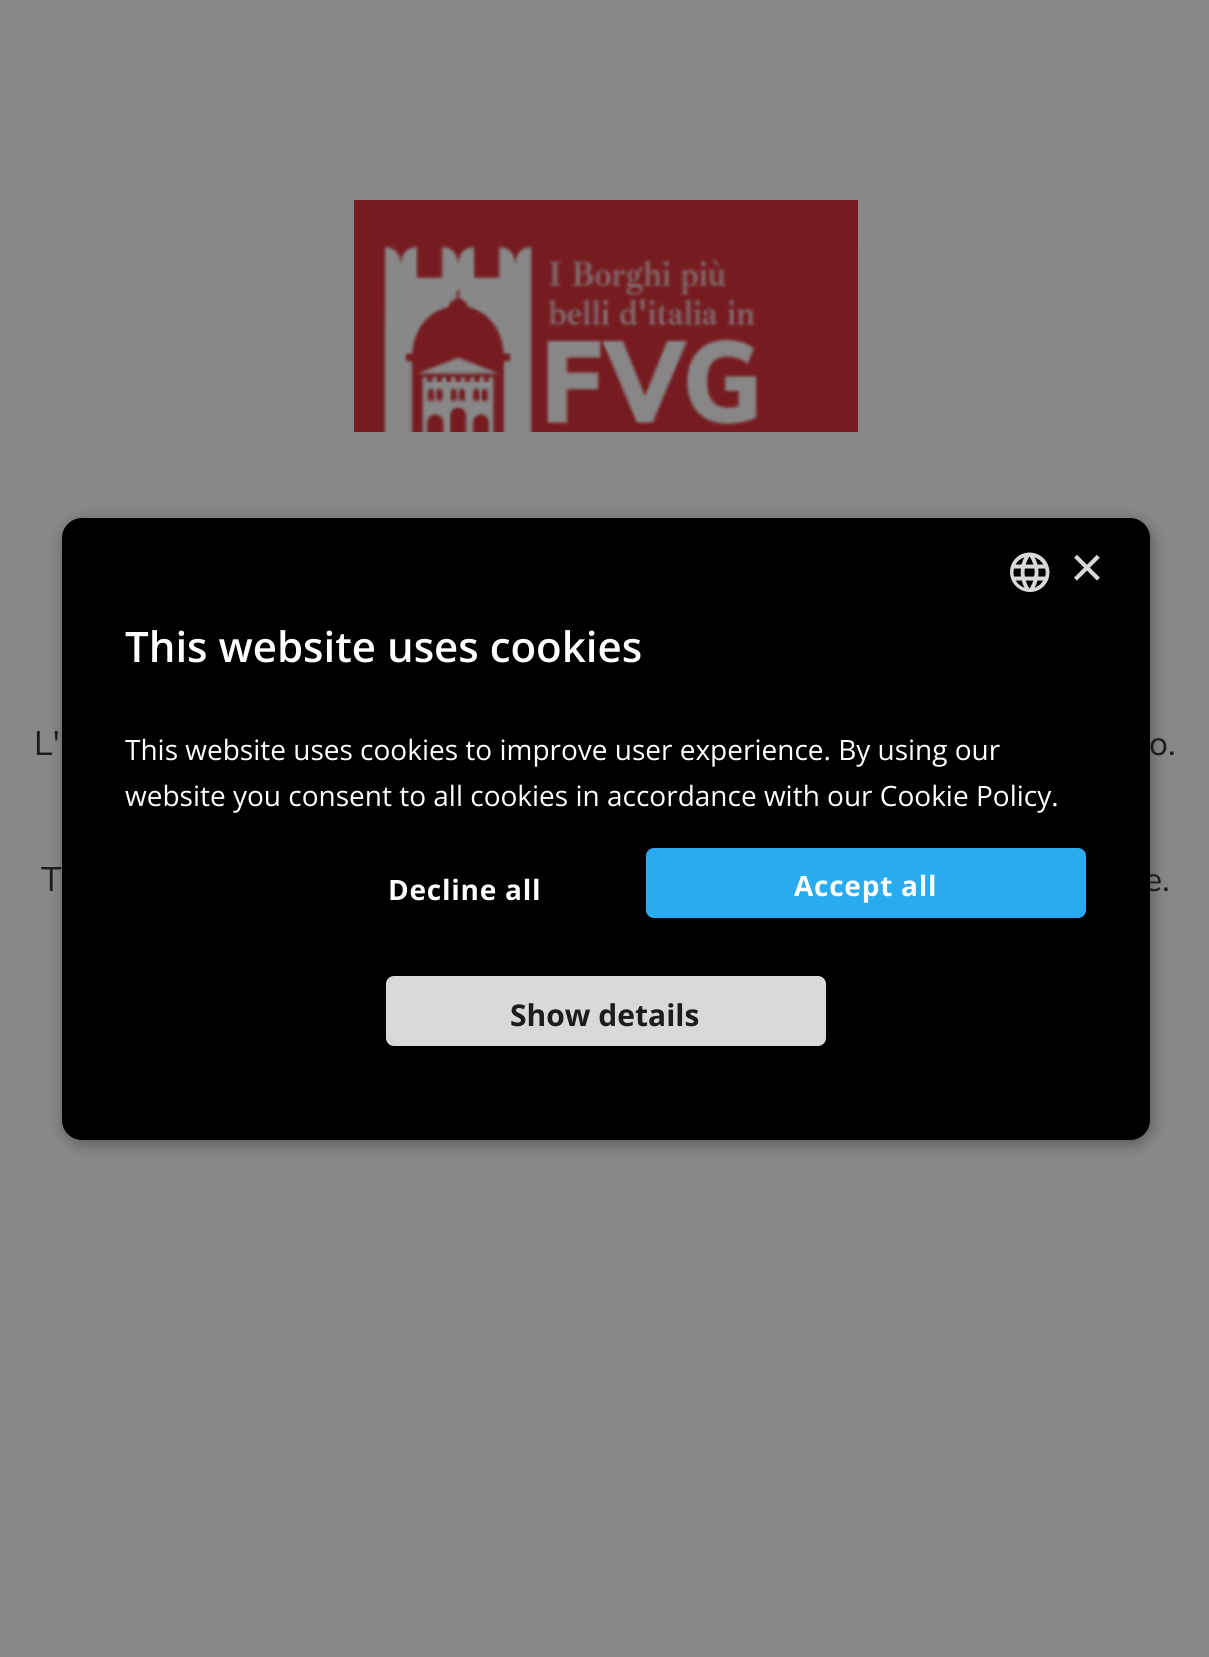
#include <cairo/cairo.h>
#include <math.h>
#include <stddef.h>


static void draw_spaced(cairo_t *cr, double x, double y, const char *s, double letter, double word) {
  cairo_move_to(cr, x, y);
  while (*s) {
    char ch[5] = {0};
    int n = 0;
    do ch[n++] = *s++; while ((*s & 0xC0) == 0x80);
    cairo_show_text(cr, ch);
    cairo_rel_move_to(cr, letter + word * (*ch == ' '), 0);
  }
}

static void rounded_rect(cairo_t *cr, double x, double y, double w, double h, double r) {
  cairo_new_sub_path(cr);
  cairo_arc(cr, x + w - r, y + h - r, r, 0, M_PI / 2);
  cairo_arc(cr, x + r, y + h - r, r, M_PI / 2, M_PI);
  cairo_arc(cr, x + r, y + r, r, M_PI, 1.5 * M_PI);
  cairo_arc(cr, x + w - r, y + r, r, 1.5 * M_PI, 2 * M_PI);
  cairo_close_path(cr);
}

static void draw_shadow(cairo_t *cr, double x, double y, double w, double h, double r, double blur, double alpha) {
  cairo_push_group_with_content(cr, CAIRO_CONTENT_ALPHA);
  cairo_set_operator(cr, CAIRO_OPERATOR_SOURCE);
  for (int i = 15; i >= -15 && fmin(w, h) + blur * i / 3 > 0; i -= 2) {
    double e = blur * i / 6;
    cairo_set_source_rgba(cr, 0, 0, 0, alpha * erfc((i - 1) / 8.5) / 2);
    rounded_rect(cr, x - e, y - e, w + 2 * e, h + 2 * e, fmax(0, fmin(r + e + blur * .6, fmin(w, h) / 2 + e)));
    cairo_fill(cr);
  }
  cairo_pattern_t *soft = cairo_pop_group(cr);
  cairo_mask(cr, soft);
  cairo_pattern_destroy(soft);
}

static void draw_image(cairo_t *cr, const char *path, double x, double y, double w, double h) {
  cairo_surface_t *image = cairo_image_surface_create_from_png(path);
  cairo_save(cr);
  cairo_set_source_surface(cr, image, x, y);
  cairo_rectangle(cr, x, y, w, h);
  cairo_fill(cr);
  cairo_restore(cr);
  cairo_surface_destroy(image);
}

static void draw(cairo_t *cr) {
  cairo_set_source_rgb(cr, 136 / 255.0, 136 / 255.0, 136 / 255.0);
  cairo_paint(cr);
  cairo_set_source_rgb(cr, 0, 0, 0);
  draw_shadow(cr, 64, 522, 1088, 622, 20, 8, 0.35);
  draw_image(cr, "images/2.png", 354, 200, 504, 232);
  cairo_select_font_face(cr, "Nunito Sans", CAIRO_FONT_SLANT_NORMAL, CAIRO_FONT_WEIGHT_NORMAL);
  cairo_set_font_size(cr, 34);
  cairo_set_source_rgb(cr, 28 / 255.0, 28 / 255.0, 28 / 255.0);
  cairo_move_to(cr, 34, 755);
  cairo_show_text(cr, "L'");
  cairo_move_to(cr, 1149, 755);
  cairo_show_text(cr, "o.");
  cairo_move_to(cr, 41, 891);
  cairo_show_text(cr, "T");
  cairo_move_to(cr, 1144, 891);
  cairo_show_text(cr, "e.");
  cairo_set_source_rgb(cr, 0, 0, 0);
  rounded_rect(cr, 62, 518, 1088, 622, 20);
  cairo_fill(cr);
  cairo_select_font_face(cr, "Liberation Sans", CAIRO_FONT_SLANT_NORMAL, CAIRO_FONT_WEIGHT_NORMAL);
  cairo_set_font_size(cr, 58);
  cairo_set_source_rgb(cr, 217 / 255.0, 217 / 255.0, 217 / 255.0);
  cairo_move_to(cr, 1070, 587);
  cairo_show_text(cr, "×");
  cairo_select_font_face(cr, "Open Sans SemiBold", CAIRO_FONT_SLANT_NORMAL, CAIRO_FONT_WEIGHT_NORMAL);
  cairo_set_font_size(cr, 42);
  cairo_set_source_rgb(cr, 1, 1, 1);
  cairo_move_to(cr, 125, 662);
  cairo_show_text(cr, "This website uses cookies");
  cairo_set_source_rgb(cr, 217 / 255.0, 217 / 255.0, 217 / 255.0);
  rounded_rect(cr, 386, 976, 440, 70, 8);
  cairo_fill(cr);
  cairo_select_font_face(cr, "Open Sans", CAIRO_FONT_SLANT_NORMAL, CAIRO_FONT_WEIGHT_BOLD);
  cairo_set_font_size(cr, 30);
  cairo_set_source_rgb(cr, 28 / 255.0, 28 / 255.0, 28 / 255.0);
  cairo_move_to(cr, 510, 1026);
  cairo_show_text(cr, "Show details");
  draw_image(cr, "images/1.png", 1010, 552, 40, 40);
  cairo_set_font_size(cr, 28);
  cairo_set_source_rgb(cr, 1, 1, 1);
  draw_spaced(cr, 388, 900, "Decline all", 0.75, 0);
  cairo_set_source_rgb(cr, 41 / 255.0, 171 / 255.0, 239 / 255.0);
  rounded_rect(cr, 646, 848, 440, 70, 8);
  cairo_fill(cr);
  cairo_set_source_rgb(cr, 1, 1, 1);
  draw_spaced(cr, 794, 896, "Accept all", 0.75, 0);
  cairo_select_font_face(cr, "Open Sans", CAIRO_FONT_SLANT_NORMAL, CAIRO_FONT_WEIGHT_NORMAL);
  cairo_move_to(cr, 125, 806);
  cairo_show_text(cr, "website you consent to all cookies in accordance with our Cookie Policy.");
  cairo_move_to(cr, 125, 760);
  cairo_show_text(cr, "This website uses cookies to improve user experience. By using our");
}

int main(void) {
  cairo_surface_t *surface = cairo_image_surface_create(CAIRO_FORMAT_RGB24, 1209, 1657);
  cairo_t *cr = cairo_create(surface);
  cairo_font_options_t *options = cairo_font_options_create();
  cairo_font_options_set_hint_metrics(options, CAIRO_HINT_METRICS_OFF);
  cairo_font_options_set_hint_style(options, CAIRO_HINT_STYLE_NONE);
  cairo_set_font_options(cr, options);
  cairo_set_miter_limit(cr, 4);
  draw(cr);
  cairo_surface_write_to_png(surface, "out.png");
  cairo_font_options_destroy(options);
  cairo_destroy(cr);
  cairo_surface_destroy(surface);
  return 0;
}
